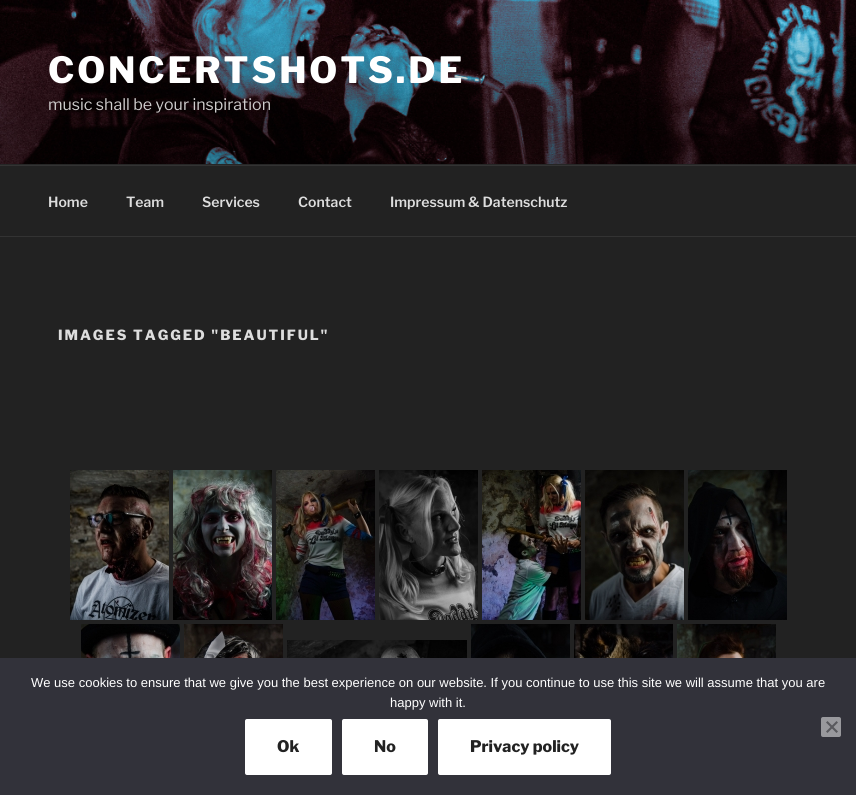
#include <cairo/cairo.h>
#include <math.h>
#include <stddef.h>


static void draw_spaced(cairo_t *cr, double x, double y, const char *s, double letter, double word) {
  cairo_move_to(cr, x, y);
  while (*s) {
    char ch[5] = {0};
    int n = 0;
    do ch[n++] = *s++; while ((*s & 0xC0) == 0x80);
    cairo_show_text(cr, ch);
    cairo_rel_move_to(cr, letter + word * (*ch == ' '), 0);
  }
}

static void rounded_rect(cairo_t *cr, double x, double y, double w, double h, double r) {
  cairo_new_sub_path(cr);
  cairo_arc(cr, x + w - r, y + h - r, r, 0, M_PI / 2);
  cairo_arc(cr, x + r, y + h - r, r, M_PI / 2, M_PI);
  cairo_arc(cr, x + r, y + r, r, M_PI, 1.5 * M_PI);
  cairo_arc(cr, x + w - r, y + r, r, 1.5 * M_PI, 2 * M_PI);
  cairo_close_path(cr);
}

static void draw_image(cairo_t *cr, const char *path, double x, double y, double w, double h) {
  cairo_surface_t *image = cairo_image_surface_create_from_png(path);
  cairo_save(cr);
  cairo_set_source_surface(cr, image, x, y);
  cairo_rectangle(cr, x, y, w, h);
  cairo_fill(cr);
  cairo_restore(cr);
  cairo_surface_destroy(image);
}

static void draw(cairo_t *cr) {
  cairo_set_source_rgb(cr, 34 / 255.0, 34 / 255.0, 34 / 255.0);
  cairo_paint(cr);
  cairo_set_source_rgb(cr, 38 / 255.0, 38 / 255.0, 38 / 255.0);
  cairo_rectangle(cr, 0, 164, 856, 1);
  cairo_fill(cr);
  draw_image(cr, "images/1.png", 0, 0, 856, 164);
  cairo_set_source_rgb(cr, 51 / 255.0, 51 / 255.0, 51 / 255.0);
  cairo_rectangle(cr, 0, 165, 856, 1);
  cairo_fill(cr);
  cairo_rectangle(cr, 0, 236, 856, 1);
  cairo_fill(cr);
  draw_image(cr, "images/2.png", 70, 470, 99, 150);
  draw_image(cr, "images/3.png", 173, 470, 99, 150);
  draw_image(cr, "images/4.png", 276, 470, 99, 150);
  draw_image(cr, "images/5.png", 379, 470, 99, 150);
  draw_image(cr, "images/6.png", 482, 470, 99, 150);
  draw_image(cr, "images/7.png", 585, 470, 99, 150);
  draw_image(cr, "images/8.png", 688, 470, 99, 150);
  draw_image(cr, "images/9.png", 81, 624, 99, 34);
  draw_image(cr, "images/10.png", 184, 624, 99, 34);
  draw_image(cr, "images/11.png", 287, 640, 180, 18);
  draw_image(cr, "images/12.png", 471, 624, 99, 34);
  draw_image(cr, "images/13.png", 574, 624, 99, 34);
  draw_image(cr, "images/14.png", 677, 624, 99, 34);
  cairo_set_source_rgb(cr, 50 / 255.0, 50 / 255.0, 58 / 255.0);
  cairo_rectangle(cr, 0, 658, 856, 137);
  cairo_fill(cr);
  cairo_set_source_rgb(cr, 153 / 255.0, 153 / 255.0, 157 / 255.0);
  rounded_rect(cr, 821, 717, 20, 20, 2);
  cairo_fill(cr);
  cairo_set_source_rgb(cr, 89 / 255.0, 89 / 255.0, 93 / 255.0);
  cairo_new_path(cr);
  cairo_move_to(cr, 836.5, 721);
  cairo_line_to(cr, 838, 722.5);
  cairo_line_to(cr, 827.5, 733);
  cairo_line_to(cr, 826, 731.5);
  cairo_close_path(cr);
  cairo_fill(cr);
  cairo_new_path(cr);
  cairo_move_to(cr, 826, 722.5);
  cairo_line_to(cr, 827.5, 721);
  cairo_line_to(cr, 838, 731.5);
  cairo_line_to(cr, 836.5, 733);
  cairo_close_path(cr);
  cairo_fill(cr);
  cairo_set_source_rgb(cr, 1, 1, 1);
  rounded_rect(cr, 245, 719, 87, 56, 2);
  cairo_fill(cr);
  rounded_rect(cr, 342, 719, 86, 56, 2);
  cairo_fill(cr);
  rounded_rect(cr, 438, 719, 173, 56, 2);
  cairo_fill(cr);
  cairo_select_font_face(cr, "Libre Franklin Thin", CAIRO_FONT_SLANT_NORMAL, CAIRO_FONT_WEIGHT_NORMAL);
  cairo_set_font_size(cr, 36);
  draw_spaced(cr, 48, 83, "CONCERTSHOTS.DE", 2.9, 0);
  cairo_select_font_face(cr, "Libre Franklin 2 Thin", CAIRO_FONT_SLANT_NORMAL, CAIRO_FONT_WEIGHT_NORMAL);
  cairo_set_font_size(cr, 16);
  cairo_set_source_rgb(cr, 207 / 255.0, 205 / 255.0, 205 / 255.0);
  cairo_move_to(cr, 48, 110);
  cairo_show_text(cr, "music shall be your inspiration");
  cairo_select_font_face(cr, "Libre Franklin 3 Thin", CAIRO_FONT_SLANT_NORMAL, CAIRO_FONT_WEIGHT_NORMAL);
  cairo_set_font_size(cr, 14);
  cairo_set_source_rgb(cr, 221 / 255.0, 221 / 255.0, 221 / 255.0);
  cairo_move_to(cr, 48, 207);
  cairo_show_text(cr, "Home");
  cairo_move_to(cr, 126, 207);
  cairo_show_text(cr, "Team");
  cairo_move_to(cr, 202, 207);
  cairo_show_text(cr, "Services");
  cairo_move_to(cr, 298, 207);
  cairo_show_text(cr, "Contact");
  cairo_move_to(cr, 390, 207);
  cairo_show_text(cr, "Impressum & Datenschutz");
  cairo_select_font_face(cr, "Libre Franklin Thin", CAIRO_FONT_SLANT_NORMAL, CAIRO_FONT_WEIGHT_NORMAL);
  draw_spaced(cr, 58, 340, "IMAGES TAGGED \"BEAUTIFUL\"", 1.95, 0);
  cairo_select_font_face(cr, "Liberation Sans", CAIRO_FONT_SLANT_NORMAL, CAIRO_FONT_WEIGHT_NORMAL);
  cairo_set_font_size(cr, 13);
  cairo_set_source_rgb(cr, 1, 1, 1);
  cairo_move_to(cr, 31, 687);
  cairo_show_text(cr, "We use cookies to ensure that we give you the best experience on our website. If you continue to use this site we will assume that you are");
  cairo_move_to(cr, 390, 707);
  cairo_show_text(cr, "happy with it.");
  cairo_select_font_face(cr, "Libre Franklin Thin", CAIRO_FONT_SLANT_NORMAL, CAIRO_FONT_WEIGHT_NORMAL);
  cairo_set_font_size(cr, 16);
  cairo_set_source_rgb(cr, 34 / 255.0, 34 / 255.0, 34 / 255.0);
  cairo_move_to(cr, 277, 752);
  cairo_show_text(cr, "Ok");
  cairo_move_to(cr, 374, 752);
  cairo_show_text(cr, "No");
  cairo_move_to(cr, 470, 752);
  cairo_show_text(cr, "Privacy policy");
}

int main(void) {
  cairo_surface_t *surface = cairo_image_surface_create(CAIRO_FORMAT_RGB24, 856, 795);
  cairo_t *cr = cairo_create(surface);
  cairo_font_options_t *options = cairo_font_options_create();
  cairo_font_options_set_hint_metrics(options, CAIRO_HINT_METRICS_OFF);
  cairo_font_options_set_hint_style(options, CAIRO_HINT_STYLE_NONE);
  cairo_set_font_options(cr, options);
  cairo_set_miter_limit(cr, 4);
  draw(cr);
  cairo_surface_write_to_png(surface, "out.png");
  cairo_font_options_destroy(options);
  cairo_destroy(cr);
  cairo_surface_destroy(surface);
  return 0;
}
